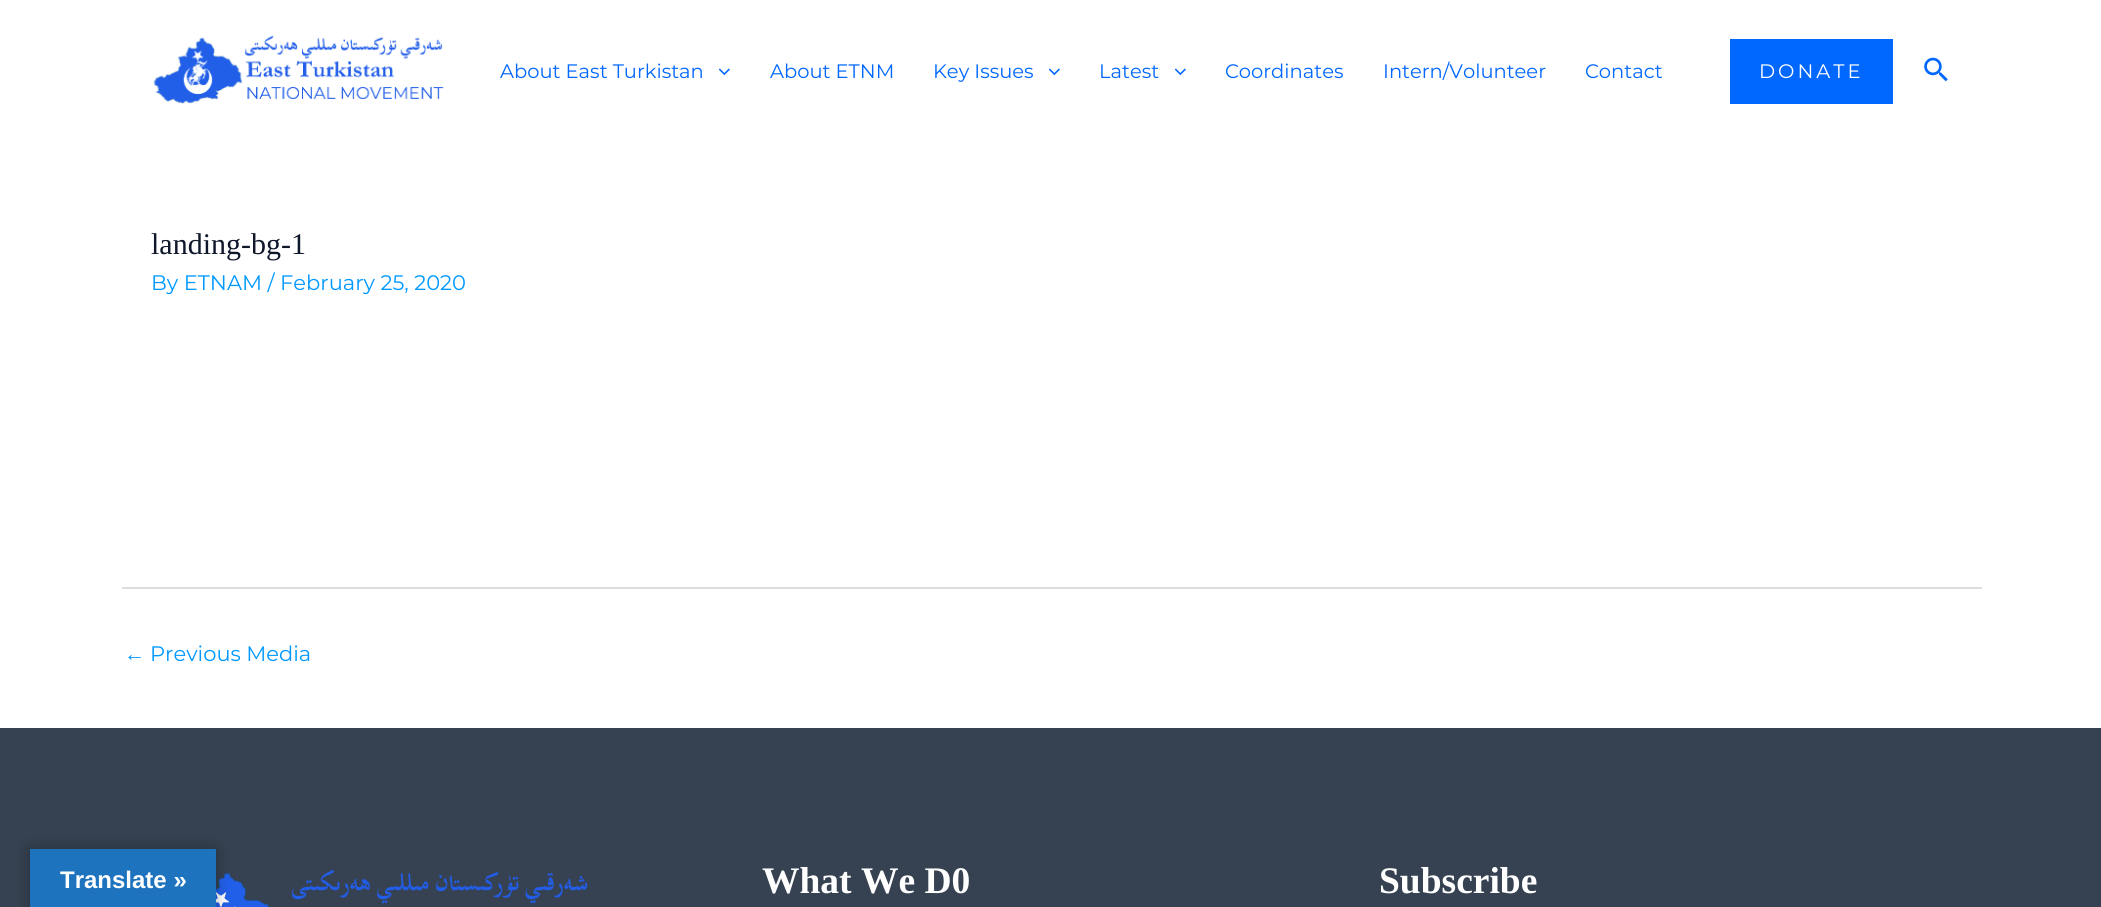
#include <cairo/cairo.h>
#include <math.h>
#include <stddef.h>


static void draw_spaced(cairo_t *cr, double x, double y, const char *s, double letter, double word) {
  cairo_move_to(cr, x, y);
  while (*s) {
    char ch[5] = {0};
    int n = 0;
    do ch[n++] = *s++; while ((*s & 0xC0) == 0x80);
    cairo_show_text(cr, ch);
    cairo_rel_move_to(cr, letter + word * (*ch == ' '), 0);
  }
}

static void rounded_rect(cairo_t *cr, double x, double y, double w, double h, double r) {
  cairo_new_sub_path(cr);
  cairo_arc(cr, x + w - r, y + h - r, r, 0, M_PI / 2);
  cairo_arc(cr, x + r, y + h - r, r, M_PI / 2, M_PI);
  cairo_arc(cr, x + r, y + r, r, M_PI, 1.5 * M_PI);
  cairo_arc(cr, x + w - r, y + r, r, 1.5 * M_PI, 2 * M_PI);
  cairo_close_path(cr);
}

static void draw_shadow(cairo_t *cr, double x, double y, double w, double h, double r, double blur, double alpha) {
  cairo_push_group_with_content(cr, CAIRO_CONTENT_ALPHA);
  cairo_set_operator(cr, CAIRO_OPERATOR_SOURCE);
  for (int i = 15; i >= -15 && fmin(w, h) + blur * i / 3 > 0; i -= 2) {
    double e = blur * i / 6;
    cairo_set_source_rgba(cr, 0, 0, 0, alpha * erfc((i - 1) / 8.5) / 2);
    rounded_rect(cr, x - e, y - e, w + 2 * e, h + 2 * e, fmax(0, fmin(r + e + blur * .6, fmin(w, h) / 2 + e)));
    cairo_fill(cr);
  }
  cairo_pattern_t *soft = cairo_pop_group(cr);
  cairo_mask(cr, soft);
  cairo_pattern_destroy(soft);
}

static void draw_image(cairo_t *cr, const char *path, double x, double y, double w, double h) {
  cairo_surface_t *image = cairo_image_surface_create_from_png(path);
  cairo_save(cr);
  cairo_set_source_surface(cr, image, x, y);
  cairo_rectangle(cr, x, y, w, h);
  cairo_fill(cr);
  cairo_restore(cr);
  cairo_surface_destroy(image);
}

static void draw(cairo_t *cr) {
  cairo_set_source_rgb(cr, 1, 1, 1);
  cairo_paint(cr);
  cairo_set_source_rgb(cr, 54 / 255.0, 65 / 255.0, 81 / 255.0);
  cairo_rectangle(cr, 0, 728, 2101, 179);
  cairo_fill(cr);
  draw_image(cr, "images/4.png", 216, 869, 372, 38);
  cairo_set_source_rgb(cr, 0, 0, 0);
  draw_shadow(cr, 30, 849, 186, 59, 0, 7, 0.3);
  cairo_set_source_rgb(cr, 30 / 255.0, 115 / 255.0, 190 / 255.0);
  cairo_rectangle(cr, 30, 849, 186, 58);
  cairo_fill(cr);
  draw_image(cr, "images/1.png", 153, 35, 291, 69);
  draw_image(cr, "images/2.png", 719, 68, 11, 8);
  draw_image(cr, "images/2.png", 1049, 68, 11, 8);
  draw_image(cr, "images/2.png", 1175, 68, 11, 8);
  cairo_set_source_rgb(cr, 0, 103 / 255.0, 1);
  cairo_rectangle(cr, 1730, 39, 163, 65);
  cairo_fill(cr);
  draw_image(cr, "images/3.png", 1924, 57, 24, 25);
  cairo_set_source_rgb(cr, 221 / 255.0, 221 / 255.0, 221 / 255.0);
  cairo_rectangle(cr, 122, 587, 1860, 2);
  cairo_fill(cr);
  cairo_select_font_face(cr, "Liberation Sans", CAIRO_FONT_SLANT_NORMAL, CAIRO_FONT_WEIGHT_BOLD);
  cairo_set_font_size(cr, 24);
  cairo_set_source_rgb(cr, 1, 1, 1);
  cairo_move_to(cr, 60, 888);
  cairo_show_text(cr, "Translate »");
  cairo_select_font_face(cr, "Montserrat Thin", CAIRO_FONT_SLANT_NORMAL, CAIRO_FONT_WEIGHT_NORMAL);
  cairo_set_font_size(cr, 19.5);
  cairo_set_source_rgb(cr, 0, 103 / 255.0, 1);
  cairo_move_to(cr, 500, 78);
  cairo_show_text(cr, "About East Turkistan");
  cairo_move_to(cr, 770, 78);
  cairo_show_text(cr, "About ETNM");
  cairo_move_to(cr, 933, 78);
  cairo_show_text(cr, "Key Issues");
  cairo_move_to(cr, 1099, 78);
  cairo_show_text(cr, "Latest");
  cairo_move_to(cr, 1225, 78);
  cairo_show_text(cr, "Coordinates");
  cairo_move_to(cr, 1383, 78);
  cairo_show_text(cr, "Intern/Volunteer");
  cairo_move_to(cr, 1585, 78);
  cairo_show_text(cr, "Contact");
  cairo_set_source_rgb(cr, 1, 1, 1);
  draw_spaced(cr, 1759, 78, "DONATE", 3, 0);
  cairo_select_font_face(cr, "Liberation Serif", CAIRO_FONT_SLANT_NORMAL, CAIRO_FONT_WEIGHT_NORMAL);
  cairo_set_font_size(cr, 30);
  cairo_set_source_rgb(cr, 15 / 255.0, 23 / 255.0, 42 / 255.0);
  cairo_move_to(cr, 151, 254);
  cairo_show_text(cr, "landing-bg-1");
  cairo_select_font_face(cr, "Montserrat Thin", CAIRO_FONT_SLANT_NORMAL, CAIRO_FONT_WEIGHT_NORMAL);
  cairo_set_font_size(cr, 21);
  cairo_set_source_rgb(cr, 0, 153 / 255.0, 1);
  cairo_move_to(cr, 151, 290);
  cairo_show_text(cr, "By ETNAM / February 25, 2020");
  cairo_select_font_face(cr, "Liberation Sans", CAIRO_FONT_SLANT_NORMAL, CAIRO_FONT_WEIGHT_NORMAL);
  cairo_move_to(cr, 124, 661);
  cairo_show_text(cr, "←");
  cairo_select_font_face(cr, "Montserrat Thin", CAIRO_FONT_SLANT_NORMAL, CAIRO_FONT_WEIGHT_NORMAL);
  cairo_move_to(cr, 150, 661);
  cairo_show_text(cr, "Previous Media");
  cairo_select_font_face(cr, "Liberation Serif", CAIRO_FONT_SLANT_NORMAL, CAIRO_FONT_WEIGHT_BOLD);
  cairo_set_font_size(cr, 37.5);
  cairo_set_source_rgb(cr, 1, 1, 1);
  cairo_move_to(cr, 762, 893);
  cairo_show_text(cr, "What We D0");
  cairo_move_to(cr, 1379, 893);
  cairo_show_text(cr, "Subscribe");
}

int main(void) {
  cairo_surface_t *surface = cairo_image_surface_create(CAIRO_FORMAT_RGB24, 2101, 907);
  cairo_t *cr = cairo_create(surface);
  cairo_font_options_t *options = cairo_font_options_create();
  cairo_font_options_set_hint_metrics(options, CAIRO_HINT_METRICS_OFF);
  cairo_font_options_set_hint_style(options, CAIRO_HINT_STYLE_NONE);
  cairo_set_font_options(cr, options);
  cairo_set_miter_limit(cr, 4);
  draw(cr);
  cairo_surface_write_to_png(surface, "out.png");
  cairo_font_options_destroy(options);
  cairo_destroy(cr);
  cairo_surface_destroy(surface);
  return 0;
}
